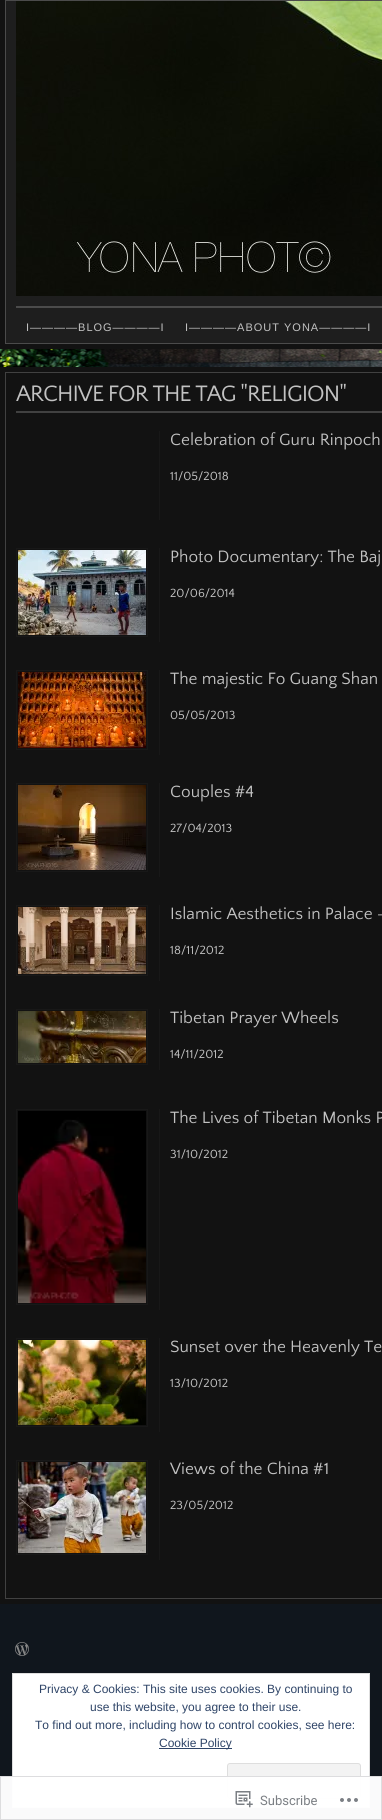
#include <cairo/cairo.h>
#include <math.h>
#include <stddef.h>


static void draw_spaced(cairo_t *cr, double x, double y, const char *s, double letter, double word) {
  cairo_move_to(cr, x, y);
  while (*s) {
    char ch[5] = {0};
    int n = 0;
    do ch[n++] = *s++; while ((*s & 0xC0) == 0x80);
    cairo_show_text(cr, ch);
    cairo_rel_move_to(cr, letter + word * (*ch == ' '), 0);
  }
}

static void rounded_rect(cairo_t *cr, double x, double y, double w, double h, double r) {
  cairo_new_sub_path(cr);
  cairo_arc(cr, x + w - r, y + h - r, r, 0, M_PI / 2);
  cairo_arc(cr, x + r, y + h - r, r, M_PI / 2, M_PI);
  cairo_arc(cr, x + r, y + r, r, M_PI, 1.5 * M_PI);
  cairo_arc(cr, x + w - r, y + r, r, 1.5 * M_PI, 2 * M_PI);
  cairo_close_path(cr);
}

static void draw_image(cairo_t *cr, const char *path, double x, double y, double w, double h) {
  cairo_surface_t *image = cairo_image_surface_create_from_png(path);
  cairo_save(cr);
  cairo_set_source_surface(cr, image, x, y);
  cairo_rectangle(cr, x, y, w, h);
  cairo_fill(cr);
  cairo_restore(cr);
  cairo_surface_destroy(image);
}

static void draw(cairo_t *cr) {
  cairo_set_source_rgb(cr, 16 / 255.0, 22 / 255.0, 29 / 255.0);
  cairo_paint(cr);
  draw_image(cr, "images/1.png", 0, 349, 382, 18);
  cairo_set_source_rgb(cr, 18 / 255.0, 18 / 255.0, 18 / 255.0);
  cairo_rectangle(cr, 0, 0, 382, 349);
  cairo_fill(cr);
  cairo_set_source_rgb(cr, 30 / 255.0, 30 / 255.0, 30 / 255.0);
  cairo_rectangle(cr, 5.5, 0.5, 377, 343);
  cairo_fill_preserve(cr);
  cairo_set_source_rgb(cr, 75 / 255.0, 75 / 255.0, 75 / 255.0);
  cairo_set_line_width(cr, 1);
  cairo_stroke(cr);
  draw_image(cr, "images/2.png", 16, 1, 366, 295);
  cairo_rectangle(cr, 16, 306, 366, 2);
  cairo_fill(cr);
  cairo_set_source_rgb(cr, 18 / 255.0, 18 / 255.0, 18 / 255.0);
  cairo_rectangle(cr, 0, 367, 382, 1237);
  cairo_fill(cr);
  cairo_rectangle(cr, 5.5, 372.5, 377, 1226);
  cairo_set_source_rgb(cr, 65 / 255.0, 65 / 255.0, 65 / 255.0);
  cairo_stroke(cr);
  cairo_rectangle(cr, 16, 411, 366, 2);
  cairo_fill(cr);
  cairo_set_source_rgb(cr, 24 / 255.0, 24 / 255.0, 24 / 255.0);
  cairo_rectangle(cr, 159, 431, 1, 89);
  cairo_fill(cr);
  cairo_rectangle(cr, 159, 548, 1, 94);
  cairo_fill(cr);
  cairo_rectangle(cr, 16.5, 548.5, 131, 88);
  cairo_stroke(cr);
  draw_image(cr, "images/3.png", 18, 550, 128, 85);
  cairo_rectangle(cr, 159, 670, 1, 85);
  cairo_fill(cr);
  cairo_rectangle(cr, 16.5, 670.5, 131, 79);
  cairo_stroke(cr);
  draw_image(cr, "images/4.png", 18, 672, 128, 76);
  cairo_rectangle(cr, 159, 783, 1, 94);
  cairo_fill(cr);
  cairo_rectangle(cr, 16.5, 783.5, 131, 88);
  cairo_stroke(cr);
  draw_image(cr, "images/5.png", 18, 785, 128, 85);
  cairo_rectangle(cr, 159, 905, 1, 76);
  cairo_fill(cr);
  cairo_rectangle(cr, 16.5, 905.5, 131, 70);
  cairo_stroke(cr);
  draw_image(cr, "images/6.png", 18, 907, 128, 67);
  cairo_rectangle(cr, 159, 1009, 1, 61);
  cairo_fill(cr);
  cairo_rectangle(cr, 16.5, 1009.5, 131, 55);
  cairo_stroke(cr);
  draw_image(cr, "images/7.png", 18, 1011, 128, 52);
  cairo_rectangle(cr, 159, 1109, 1, 201);
  cairo_fill(cr);
  cairo_rectangle(cr, 16.5, 1109.5, 131, 195);
  cairo_stroke(cr);
  draw_image(cr, "images/8.png", 18, 1111, 128, 192);
  cairo_rectangle(cr, 159, 1338, 1, 94);
  cairo_fill(cr);
  cairo_rectangle(cr, 16.5, 1338.5, 131, 88);
  cairo_stroke(cr);
  draw_image(cr, "images/9.png", 18, 1340, 128, 85);
  cairo_rectangle(cr, 159, 1460, 1, 100);
  cairo_fill(cr);
  cairo_rectangle(cr, 16.5, 1460.5, 131, 94);
  cairo_stroke(cr);
  draw_image(cr, "images/10.png", 18, 1462, 128, 91);
  draw_image(cr, "images/11.png", 15, 1642, 14, 14);
  cairo_set_source_rgb(cr, 1, 1, 1);
  cairo_rectangle(cr, 12.5, 1673.5, 357, 134);
  cairo_fill_preserve(cr);
  cairo_set_source_rgb(cr, 222 / 255.0, 222 / 255.0, 222 / 255.0);
  cairo_stroke(cr);
  cairo_set_source_rgb(cr, 46 / 255.0, 68 / 255.0, 103 / 255.0);
  cairo_rectangle(cr, 159, 1748, 73, 1);
  cairo_fill(cr);
  cairo_set_source_rgb(cr, 243 / 255.0, 243 / 255.0, 243 / 255.0);
  rounded_rect(cr, 227.5, 1763.5, 133, 35, 2.5);
  cairo_fill_preserve(cr);
  cairo_set_source_rgb(cr, 222 / 255.0, 222 / 255.0, 222 / 255.0);
  cairo_stroke(cr);
  cairo_set_source_rgba(cr, 1, 1, 1, 0.98);
  cairo_rectangle(cr, 0, 1776, 382, 44);
  cairo_fill(cr);
  cairo_rectangle(cr, 0.5, 1776.5, 381, 43);
  cairo_set_source_rgba(cr, 220 / 255.0, 220 / 255.0, 222 / 255.0, 0.98);
  cairo_stroke(cr);
  draw_image(cr, "images/12.png", 235, 1791, 18, 17);
  draw_image(cr, "images/13.png", 340, 1798, 18, 4);
  cairo_select_font_face(cr, "Liberation Sans", CAIRO_FONT_SLANT_NORMAL, CAIRO_FONT_WEIGHT_NORMAL);
  cairo_set_font_size(cr, 11);
  cairo_set_source_rgb(cr, 194 / 255.0, 194 / 255.0, 194 / 255.0);
  draw_spaced(cr, 26, 331, "I————BLOG————I", 1, 0);
  draw_spaced(cr, 185, 331, "I————ABOUT YONA————I", 1, 0);
  cairo_select_font_face(cr, "Quattrocento Sans", CAIRO_FONT_SLANT_NORMAL, CAIRO_FONT_WEIGHT_NORMAL);
  cairo_set_font_size(cr, 23.4);
  draw_spaced(cr, 16, 401, "ARCHIVE FOR THE TAG \"RELIGION\"", -1, 0);
  cairo_set_font_size(cr, 17.2);
  cairo_move_to(cr, 170, 445);
  cairo_show_text(cr, "Celebration of Guru Rinpoch");
  cairo_set_font_size(cr, 12.5);
  cairo_move_to(cr, 170, 480);
  cairo_show_text(cr, "11/05/2018");
  cairo_set_font_size(cr, 17.2);
  cairo_move_to(cr, 170, 562);
  cairo_show_text(cr, "Photo Documentary: The Baj");
  cairo_set_font_size(cr, 12.5);
  cairo_move_to(cr, 170, 597);
  cairo_show_text(cr, "20/06/2014");
  cairo_set_font_size(cr, 17.2);
  cairo_move_to(cr, 170, 684);
  cairo_show_text(cr, "The majestic Fo Guang Shan");
  cairo_set_font_size(cr, 12.5);
  cairo_move_to(cr, 170, 719);
  cairo_show_text(cr, "05/05/2013");
  cairo_set_font_size(cr, 17.2);
  cairo_move_to(cr, 170, 797);
  cairo_show_text(cr, "Couples #4");
  cairo_set_font_size(cr, 12.5);
  cairo_move_to(cr, 170, 832);
  cairo_show_text(cr, "27/04/2013");
  cairo_set_font_size(cr, 17.2);
  cairo_move_to(cr, 170, 919);
  cairo_show_text(cr, "Islamic Aesthetics in Palace -");
  cairo_set_font_size(cr, 12.5);
  cairo_move_to(cr, 170, 954);
  cairo_show_text(cr, "18/11/2012");
  cairo_set_font_size(cr, 17.2);
  cairo_move_to(cr, 170, 1023);
  cairo_show_text(cr, "Tibetan Prayer Wheels");
  cairo_set_font_size(cr, 12.5);
  cairo_move_to(cr, 170, 1058);
  cairo_show_text(cr, "14/11/2012");
  cairo_set_font_size(cr, 17.2);
  cairo_move_to(cr, 170, 1123);
  cairo_show_text(cr, "The Lives of Tibetan Monks P");
  cairo_set_font_size(cr, 12.5);
  cairo_move_to(cr, 170, 1158);
  cairo_show_text(cr, "31/10/2012");
  cairo_set_font_size(cr, 17.2);
  cairo_move_to(cr, 170, 1352);
  cairo_show_text(cr, "Sunset over the Heavenly Te");
  cairo_set_font_size(cr, 12.5);
  cairo_move_to(cr, 170, 1387);
  cairo_show_text(cr, "13/10/2012");
  cairo_set_font_size(cr, 17.2);
  cairo_move_to(cr, 170, 1474);
  cairo_show_text(cr, "Views of the China #1");
  cairo_set_font_size(cr, 12.5);
  cairo_move_to(cr, 170, 1509);
  cairo_show_text(cr, "23/05/2012");
  cairo_select_font_face(cr, "Liberation Sans", CAIRO_FONT_SLANT_NORMAL, CAIRO_FONT_WEIGHT_NORMAL);
  cairo_set_font_size(cr, 12);
  cairo_set_source_rgb(cr, 46 / 255.0, 68 / 255.0, 103 / 255.0);
  cairo_move_to(cr, 39, 1693);
  cairo_show_text(cr, "Privacy & Cookies: This site uses cookies. By continuing to");
  cairo_move_to(cr, 90, 1711);
  cairo_show_text(cr, "use this website, you agree to their use.");
  cairo_move_to(cr, 35, 1729);
  cairo_show_text(cr, "To find out more, including how to control cookies, see here:");
  cairo_move_to(cr, 159, 1747);
  cairo_show_text(cr, "Cookie Policy");
  cairo_select_font_face(cr, "Roboto", CAIRO_FONT_SLANT_NORMAL, CAIRO_FONT_WEIGHT_NORMAL);
  cairo_set_font_size(cr, 13);
  cairo_set_source_rgb(cr, 123 / 255.0, 127 / 255.0, 132 / 255.0);
  cairo_move_to(cr, 260, 1805);
  cairo_show_text(cr, "Subscribe");
}

int main(void) {
  cairo_surface_t *surface = cairo_image_surface_create(CAIRO_FORMAT_RGB24, 382, 1820);
  cairo_t *cr = cairo_create(surface);
  cairo_font_options_t *options = cairo_font_options_create();
  cairo_font_options_set_hint_metrics(options, CAIRO_HINT_METRICS_OFF);
  cairo_font_options_set_hint_style(options, CAIRO_HINT_STYLE_NONE);
  cairo_set_font_options(cr, options);
  cairo_set_miter_limit(cr, 4);
  draw(cr);
  cairo_surface_write_to_png(surface, "out.png");
  cairo_font_options_destroy(options);
  cairo_destroy(cr);
  cairo_surface_destroy(surface);
  return 0;
}
